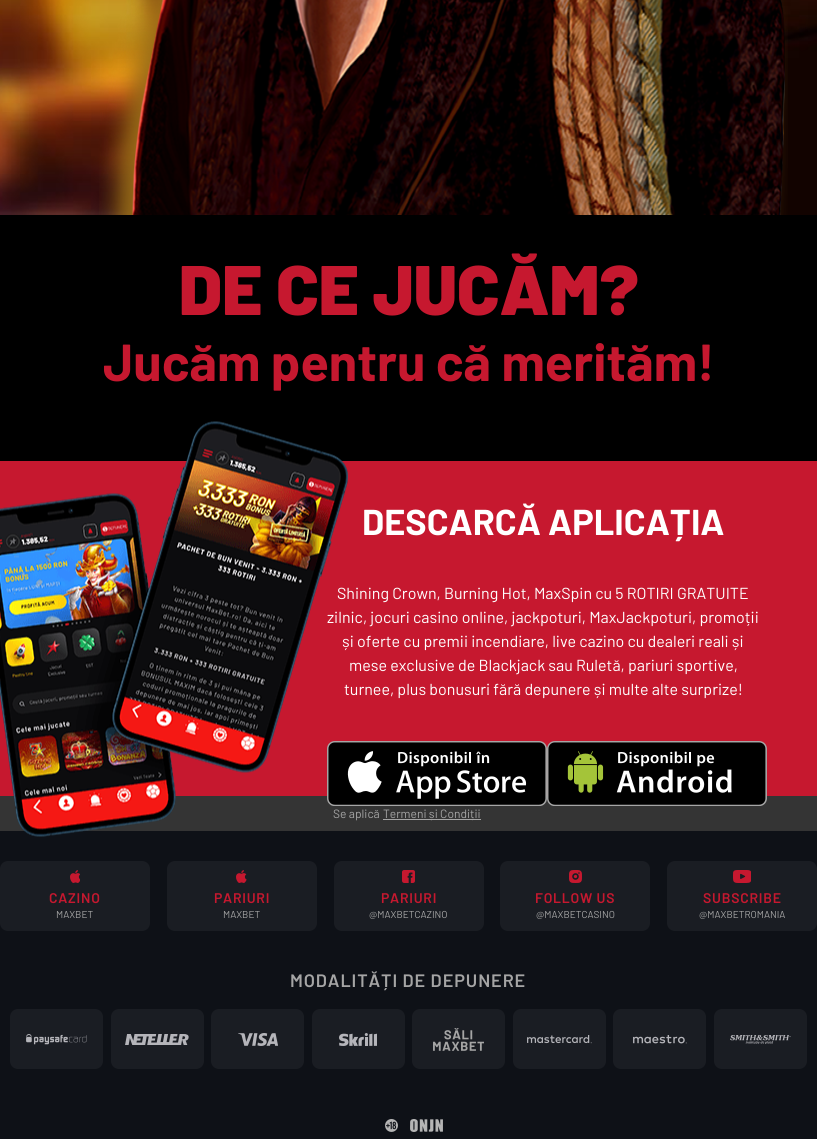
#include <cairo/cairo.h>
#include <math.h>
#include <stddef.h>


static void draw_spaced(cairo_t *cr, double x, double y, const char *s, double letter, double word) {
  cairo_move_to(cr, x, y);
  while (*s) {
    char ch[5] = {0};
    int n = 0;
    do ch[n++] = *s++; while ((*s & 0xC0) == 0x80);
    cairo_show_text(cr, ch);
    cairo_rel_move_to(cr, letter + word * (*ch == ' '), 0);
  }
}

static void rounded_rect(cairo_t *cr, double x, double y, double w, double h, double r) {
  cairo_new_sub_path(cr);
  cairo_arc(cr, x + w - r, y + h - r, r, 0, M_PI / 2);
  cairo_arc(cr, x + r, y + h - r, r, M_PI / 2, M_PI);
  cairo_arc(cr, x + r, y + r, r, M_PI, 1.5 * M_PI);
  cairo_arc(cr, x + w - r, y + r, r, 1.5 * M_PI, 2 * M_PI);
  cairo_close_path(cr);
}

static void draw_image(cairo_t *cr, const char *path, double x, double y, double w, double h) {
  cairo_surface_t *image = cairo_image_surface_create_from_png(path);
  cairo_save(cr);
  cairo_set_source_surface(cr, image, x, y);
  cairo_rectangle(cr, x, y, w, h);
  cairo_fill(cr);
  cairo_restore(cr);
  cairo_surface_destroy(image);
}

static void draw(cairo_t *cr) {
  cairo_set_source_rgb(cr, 0, 0, 0);
  cairo_paint(cr);
  draw_image(cr, "images/1.png", 0, 0, 817, 215);
  draw_image(cr, "images/2.png", 99, 0, 689, 215);
  cairo_set_source_rgb(cr, 198 / 255.0, 24 / 255.0, 47 / 255.0);
  cairo_rectangle(cr, 0, 461, 817, 335);
  cairo_fill(cr);
  cairo_set_source_rgb(cr, 52 / 255.0, 52 / 255.0, 52 / 255.0);
  cairo_rectangle(cr, 0, 796, 817, 35);
  cairo_fill(cr);
  draw_image(cr, "images/4.png", 327, 741, 220, 65);
  draw_image(cr, "images/5.png", 547, 741, 220, 65);
  cairo_set_source_rgb(cr, 165 / 255.0, 165 / 255.0, 165 / 255.0);
  cairo_rectangle(cr, 383, 819, 98, 1);
  cairo_fill(cr);
  cairo_set_source_rgb(cr, 14 / 255.0, 17 / 255.0, 23 / 255.0);
  cairo_rectangle(cr, 0, 831, 817, 308);
  cairo_fill(cr);
  cairo_set_source_rgb(cr, 26 / 255.0, 29 / 255.0, 35 / 255.0);
  rounded_rect(cr, 0, 861, 150, 70, 8);
  cairo_fill(cr);
  draw_image(cr, "images/6.png", 70, 870, 10, 13);
  rounded_rect(cr, 167, 861, 150, 70, 8);
  cairo_fill(cr);
  draw_image(cr, "images/7.png", 236, 870, 11, 13);
  rounded_rect(cr, 334, 861, 150, 70, 8);
  cairo_fill(cr);
  draw_image(cr, "images/8.png", 402, 870, 13, 13);
  rounded_rect(cr, 500, 861, 150, 70, 8);
  cairo_fill(cr);
  draw_image(cr, "images/9.png", 569, 870, 13, 13);
  rounded_rect(cr, 667, 861, 150, 70, 8);
  cairo_fill(cr);
  draw_image(cr, "images/10.png", 733, 870, 18, 13);
  rounded_rect(cr, 10, 1009, 93, 60, 8);
  cairo_fill(cr);
  draw_image(cr, "images/11.png", 26, 1034, 61, 11);
  rounded_rect(cr, 111, 1009, 93, 60, 8);
  cairo_fill(cr);
  draw_image(cr, "images/12.png", 125, 1034, 64, 11);
  rounded_rect(cr, 211, 1009, 93, 60, 8);
  cairo_fill(cr);
  draw_image(cr, "images/13.png", 238, 1033, 40, 13);
  rounded_rect(cr, 312, 1009, 93, 60, 8);
  cairo_fill(cr);
  draw_image(cr, "images/14.png", 339, 1033, 38, 13);
  rounded_rect(cr, 412, 1009, 93, 60, 8);
  cairo_fill(cr);
  draw_image(cr, "images/15.png", 433, 1028, 51, 23);
  rounded_rect(cr, 513, 1009, 93, 60, 8);
  cairo_fill(cr);
  draw_image(cr, "images/16.png", 527, 1035, 65, 9);
  rounded_rect(cr, 613, 1009, 93, 60, 8);
  cairo_fill(cr);
  draw_image(cr, "images/17.png", 633, 1035, 54, 9);
  rounded_rect(cr, 714, 1009, 93, 60, 8);
  cairo_fill(cr);
  draw_image(cr, "images/18.png", 730, 1035, 61, 9);
  draw_image(cr, "images/19.png", 385, 1119, 13, 13);
  draw_image(cr, "images/20.png", 410, 1119, 33, 13);
  cairo_select_font_face(cr, "Barlow Black", CAIRO_FONT_SLANT_NORMAL, CAIRO_FONT_WEIGHT_NORMAL);
  cairo_set_font_size(cr, 70);
  cairo_set_source_rgb(cr, 198 / 255.0, 24 / 255.0, 47 / 255.0);
  cairo_move_to(cr, 179, 315);
  cairo_show_text(cr, "DE CE JUCĂM?");
  cairo_select_font_face(cr, "Barlow", CAIRO_FONT_SLANT_NORMAL, CAIRO_FONT_WEIGHT_BOLD);
  cairo_set_font_size(cr, 52);
  cairo_move_to(cr, 103, 381);
  cairo_show_text(cr, "Jucăm pentru că merităm!");
  cairo_set_font_size(cr, 36);
  cairo_set_source_rgb(cr, 1, 1, 1);
  cairo_move_to(cr, 362, 535);
  cairo_show_text(cr, "DESCARCĂ APLICAȚIA");
  cairo_select_font_face(cr, "Barlow", CAIRO_FONT_SLANT_NORMAL, CAIRO_FONT_WEIGHT_NORMAL);
  cairo_set_font_size(cr, 16);
  cairo_move_to(cr, 337, 599);
  cairo_show_text(cr, "Shining Crown, Burning Hot, MaxSpin cu 5 ROTIRI GRATUITE");
  cairo_move_to(cr, 327, 623);
  cairo_show_text(cr, "zilnic, jocuri casino online, jackpoturi, MaxJackpoturi, promoții");
  cairo_move_to(cr, 342, 647);
  cairo_show_text(cr, "și oferte cu premii incendiare, live cazino cu dealeri reali și");
  cairo_move_to(cr, 349, 671);
  cairo_show_text(cr, "mese exclusive de Blackjack sau Ruletă, pariuri sportive,");
  cairo_move_to(cr, 344, 695);
  cairo_show_text(cr, "turnee, plus bonusuri fără depunere și multe alte surprize!");
  cairo_set_font_size(cr, 12);
  cairo_set_source_rgb(cr, 165 / 255.0, 165 / 255.0, 165 / 255.0);
  cairo_move_to(cr, 333, 818);
  cairo_show_text(cr, "Se aplică");
  draw_image(cr, "images/3.png", 0, 421, 348, 416);
  cairo_move_to(cr, 383, 818);
  cairo_show_text(cr, "Termeni și Condiții");
  cairo_select_font_face(cr, "Barlow SemiBold", CAIRO_FONT_SLANT_NORMAL, CAIRO_FONT_WEIGHT_NORMAL);
  cairo_set_font_size(cr, 14);
  cairo_set_source_rgb(cr, 198 / 255.0, 24 / 255.0, 47 / 255.0);
  draw_spaced(cr, 49, 903, "CAZINO", 0.75, 0);
  cairo_select_font_face(cr, "Barlow", CAIRO_FONT_SLANT_NORMAL, CAIRO_FONT_WEIGHT_NORMAL);
  cairo_set_font_size(cr, 10);
  cairo_set_source_rgb(cr, 165 / 255.0, 165 / 255.0, 165 / 255.0);
  cairo_move_to(cr, 56, 918);
  cairo_show_text(cr, "MAXBET");
  cairo_select_font_face(cr, "Barlow SemiBold", CAIRO_FONT_SLANT_NORMAL, CAIRO_FONT_WEIGHT_NORMAL);
  cairo_set_font_size(cr, 14);
  cairo_set_source_rgb(cr, 198 / 255.0, 24 / 255.0, 47 / 255.0);
  draw_spaced(cr, 214, 903, "PARIURI", 0.75, 0);
  cairo_select_font_face(cr, "Barlow", CAIRO_FONT_SLANT_NORMAL, CAIRO_FONT_WEIGHT_NORMAL);
  cairo_set_font_size(cr, 10);
  cairo_set_source_rgb(cr, 165 / 255.0, 165 / 255.0, 165 / 255.0);
  cairo_move_to(cr, 223, 918);
  cairo_show_text(cr, "MAXBET");
  cairo_select_font_face(cr, "Barlow SemiBold", CAIRO_FONT_SLANT_NORMAL, CAIRO_FONT_WEIGHT_NORMAL);
  cairo_set_font_size(cr, 14);
  cairo_set_source_rgb(cr, 198 / 255.0, 24 / 255.0, 47 / 255.0);
  draw_spaced(cr, 381, 903, "PARIURI", 0.75, 0);
  cairo_select_font_face(cr, "Barlow", CAIRO_FONT_SLANT_NORMAL, CAIRO_FONT_WEIGHT_NORMAL);
  cairo_set_font_size(cr, 10);
  cairo_set_source_rgb(cr, 165 / 255.0, 165 / 255.0, 165 / 255.0);
  cairo_move_to(cr, 369, 918);
  cairo_show_text(cr, "@MAXBETCAZINO");
  cairo_select_font_face(cr, "Barlow SemiBold", CAIRO_FONT_SLANT_NORMAL, CAIRO_FONT_WEIGHT_NORMAL);
  cairo_set_font_size(cr, 14);
  cairo_set_source_rgb(cr, 198 / 255.0, 24 / 255.0, 47 / 255.0);
  draw_spaced(cr, 535, 903, "FOLLOW US", 0.75, 0);
  cairo_select_font_face(cr, "Barlow", CAIRO_FONT_SLANT_NORMAL, CAIRO_FONT_WEIGHT_NORMAL);
  cairo_set_font_size(cr, 10);
  cairo_set_source_rgb(cr, 165 / 255.0, 165 / 255.0, 165 / 255.0);
  cairo_move_to(cr, 536, 918);
  cairo_show_text(cr, "@MAXBETCASINO");
  cairo_select_font_face(cr, "Barlow SemiBold", CAIRO_FONT_SLANT_NORMAL, CAIRO_FONT_WEIGHT_NORMAL);
  cairo_set_font_size(cr, 14);
  cairo_set_source_rgb(cr, 198 / 255.0, 24 / 255.0, 47 / 255.0);
  draw_spaced(cr, 703, 903, "SUBSCRIBE", 0.75, 0);
  cairo_select_font_face(cr, "Barlow", CAIRO_FONT_SLANT_NORMAL, CAIRO_FONT_WEIGHT_NORMAL);
  cairo_set_font_size(cr, 10);
  cairo_set_source_rgb(cr, 165 / 255.0, 165 / 255.0, 165 / 255.0);
  cairo_move_to(cr, 699, 918);
  cairo_show_text(cr, "@MAXBETROMANIA");
  cairo_select_font_face(cr, "Barlow SemiBold", CAIRO_FONT_SLANT_NORMAL, CAIRO_FONT_WEIGHT_NORMAL);
  cairo_set_font_size(cr, 18);
  draw_spaced(cr, 290, 987, "MODALITĂȚI DE DEPUNERE", 0.9, 0);
}

int main(void) {
  cairo_surface_t *surface = cairo_image_surface_create(CAIRO_FORMAT_RGB24, 817, 1139);
  cairo_t *cr = cairo_create(surface);
  cairo_font_options_t *options = cairo_font_options_create();
  cairo_font_options_set_hint_metrics(options, CAIRO_HINT_METRICS_OFF);
  cairo_font_options_set_hint_style(options, CAIRO_HINT_STYLE_NONE);
  cairo_set_font_options(cr, options);
  cairo_set_miter_limit(cr, 4);
  draw(cr);
  cairo_surface_write_to_png(surface, "out.png");
  cairo_font_options_destroy(options);
  cairo_destroy(cr);
  cairo_surface_destroy(surface);
  return 0;
}
